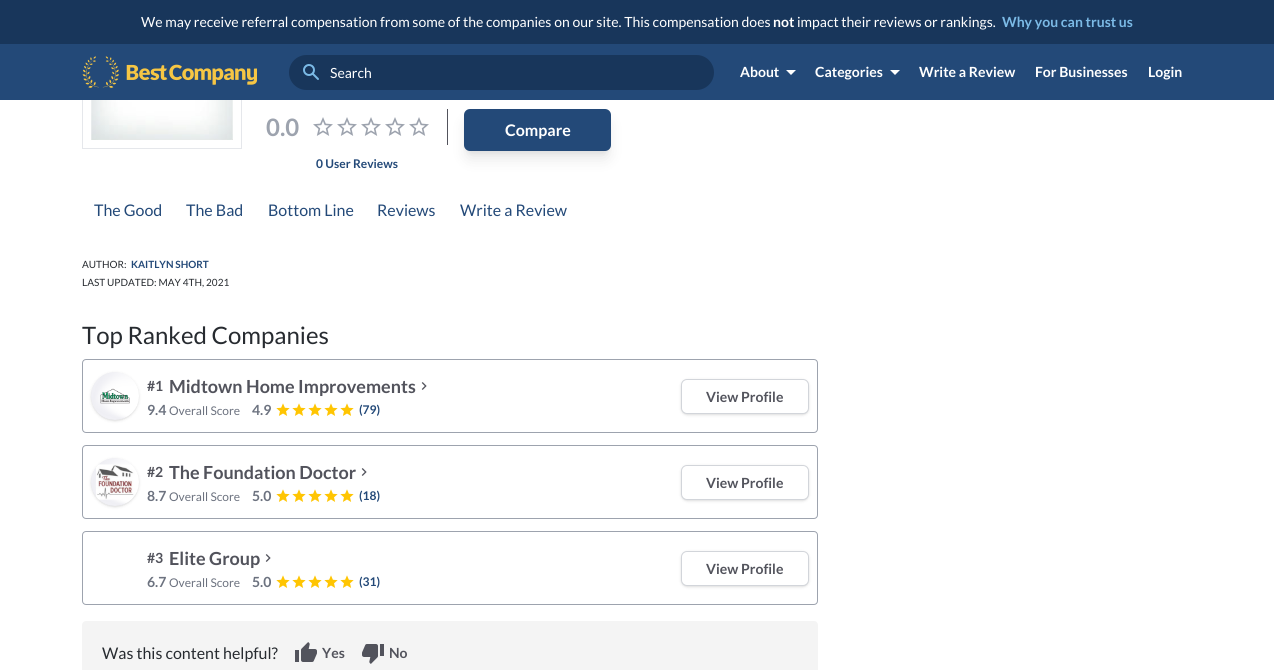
#include <cairo/cairo.h>
#include <math.h>
#include <stddef.h>


static void rounded_rect(cairo_t *cr, double x, double y, double w, double h, double r) {
  cairo_new_sub_path(cr);
  cairo_arc(cr, x + w - r, y + h - r, r, 0, M_PI / 2);
  cairo_arc(cr, x + r, y + h - r, r, M_PI / 2, M_PI);
  cairo_arc(cr, x + r, y + r, r, M_PI, 1.5 * M_PI);
  cairo_arc(cr, x + w - r, y + r, r, 1.5 * M_PI, 2 * M_PI);
  cairo_close_path(cr);
}

static void draw_shadow(cairo_t *cr, double x, double y, double w, double h, double r, double blur, double alpha) {
  cairo_push_group_with_content(cr, CAIRO_CONTENT_ALPHA);
  cairo_set_operator(cr, CAIRO_OPERATOR_SOURCE);
  for (int i = 15; i >= -15 && fmin(w, h) + blur * i / 3 > 0; i -= 2) {
    double e = blur * i / 6;
    cairo_set_source_rgba(cr, 0, 0, 0, alpha * erfc((i - 1) / 8.5) / 2);
    rounded_rect(cr, x - e, y - e, w + 2 * e, h + 2 * e, fmax(0, fmin(r + e + blur * .6, fmin(w, h) / 2 + e)));
    cairo_fill(cr);
  }
  cairo_pattern_t *soft = cairo_pop_group(cr);
  cairo_mask(cr, soft);
  cairo_pattern_destroy(soft);
}

static void draw_image(cairo_t *cr, const char *path, double x, double y, double w, double h) {
  cairo_surface_t *image = cairo_image_surface_create_from_png(path);
  cairo_save(cr);
  cairo_set_source_surface(cr, image, x, y);
  cairo_rectangle(cr, x, y, w, h);
  cairo_fill(cr);
  cairo_restore(cr);
  cairo_surface_destroy(image);
}

static void draw(cairo_t *cr) {
  cairo_set_source_rgb(cr, 1, 1, 1);
  cairo_paint(cr);
  cairo_rectangle(cr, 82.5, -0.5, 159, 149);
  cairo_set_source_rgb(cr, 229 / 255.0, 231 / 255.0, 235 / 255.0);
  cairo_set_line_width(cr, 1);
  cairo_stroke(cr);
  cairo_set_source_rgb(cr, 24 / 255.0, 54 / 255.0, 91 / 255.0);
  cairo_rectangle(cr, 0, 0, 1274, 44);
  cairo_fill(cr);
  cairo_set_source_rgb(cr, 82 / 255.0, 83 / 255.0, 92 / 255.0);
  cairo_rectangle(cr, 447, 109, 1, 36);
  cairo_fill(cr);
  cairo_set_source_rgb(cr, 0, 0, 0);
  draw_shadow(cr, 467, 122, 141, 36, 3, 7.5, 0.1);
  cairo_set_source_rgb(cr, 35 / 255.0, 73 / 255.0, 120 / 255.0);
  cairo_rectangle(cr, 0, 44, 1274, 56);
  cairo_fill(cr);
  draw_image(cr, "images/1.png", 82, 56, 175, 32);
  cairo_set_source_rgb(cr, 24 / 255.0, 54 / 255.0, 91 / 255.0);
  rounded_rect(cr, 289, 55, 425, 35, 17.5);
  cairo_fill(cr);
  draw_image(cr, "images/2.png", 303, 64, 16, 16);
  cairo_set_source_rgb(cr, 1, 1, 1);
  cairo_new_path(cr);
  cairo_move_to(cr, 786, 70);
  cairo_line_to(cr, 796, 70);
  cairo_line_to(cr, 791, 75);
  cairo_close_path(cr);
  cairo_fill(cr);
  cairo_new_path(cr);
  cairo_move_to(cr, 890, 70);
  cairo_line_to(cr, 900, 70);
  cairo_line_to(cr, 895, 75);
  cairo_close_path(cr);
  cairo_fill(cr);
  draw_image(cr, "images/3.png", 91, 100, 142, 40);
  draw_image(cr, "images/4.png", 313, 117, 20, 19);
  draw_image(cr, "images/4.png", 337, 117, 20, 19);
  draw_image(cr, "images/4.png", 361, 117, 20, 19);
  draw_image(cr, "images/4.png", 385, 117, 20, 19);
  draw_image(cr, "images/4.png", 409, 117, 20, 19);
  cairo_set_source_rgb(cr, 0, 0, 0);
  draw_shadow(cr, 468, 117, 139, 34, 2, 3, 0.1);
  cairo_set_source_rgb(cr, 35 / 255.0, 73 / 255.0, 120 / 255.0);
  rounded_rect(cr, 464, 109, 147, 42, 6);
  cairo_fill(cr);
  rounded_rect(cr, 82.5, 359.5, 735, 73, 3.5);
  cairo_set_source_rgb(cr, 157 / 255.0, 163 / 255.0, 174 / 255.0);
  cairo_stroke(cr);
  cairo_set_source_rgb(cr, 0, 0, 0);
  draw_shadow(cr, 92, 374, 46, 46, 23, 1, 0.1);
  draw_shadow(cr, 91, 373, 48, 48, 24, 1.5, 0.1);
  draw_image(cr, "images/5.png", 91, 372, 48, 48);
  draw_image(cr, "images/6.png", 421, 382, 6, 8);
  draw_image(cr, "images/7.png", 276, 403, 14, 13);
  draw_image(cr, "images/7.png", 292, 403, 14, 13);
  draw_image(cr, "images/7.png", 308, 403, 14, 13);
  draw_image(cr, "images/7.png", 324, 403, 14, 13);
  draw_image(cr, "images/7.png", 340, 403, 14, 13);
  draw_shadow(cr, 682, 381, 126, 33, 5, 1, 0.1);
  draw_shadow(cr, 681, 380, 128, 35, 6, 1.5, 0.1);
  cairo_set_source_rgb(cr, 1, 1, 1);
  rounded_rect(cr, 681.5, 379.5, 127, 34, 5.5);
  cairo_fill_preserve(cr);
  cairo_set_source_rgb(cr, 210 / 255.0, 213 / 255.0, 218 / 255.0);
  cairo_stroke(cr);
  rounded_rect(cr, 82.5, 445.5, 735, 73, 3.5);
  cairo_set_source_rgb(cr, 157 / 255.0, 163 / 255.0, 174 / 255.0);
  cairo_stroke(cr);
  cairo_set_source_rgb(cr, 0, 0, 0);
  draw_shadow(cr, 92, 460, 46, 46, 23, 1, 0.1);
  draw_shadow(cr, 91, 459, 48, 48, 24, 1.5, 0.1);
  draw_image(cr, "images/8.png", 91, 458, 48, 48);
  draw_image(cr, "images/6.png", 361, 468, 6, 8);
  draw_image(cr, "images/7.png", 276, 489, 14, 13);
  draw_image(cr, "images/7.png", 292, 489, 14, 13);
  draw_image(cr, "images/7.png", 308, 489, 14, 13);
  draw_image(cr, "images/7.png", 324, 489, 14, 13);
  draw_image(cr, "images/7.png", 340, 489, 14, 13);
  draw_shadow(cr, 682, 467, 126, 33, 5, 1, 0.1);
  draw_shadow(cr, 681, 466, 128, 35, 6, 1.5, 0.1);
  cairo_set_source_rgb(cr, 1, 1, 1);
  rounded_rect(cr, 681.5, 465.5, 127, 34, 5.5);
  cairo_fill_preserve(cr);
  cairo_set_source_rgb(cr, 210 / 255.0, 213 / 255.0, 218 / 255.0);
  cairo_stroke(cr);
  rounded_rect(cr, 82.5, 531.5, 735, 73, 3.5);
  cairo_set_source_rgb(cr, 157 / 255.0, 163 / 255.0, 174 / 255.0);
  cairo_stroke(cr);
  draw_image(cr, "images/6.png", 265, 554, 6, 8);
  draw_image(cr, "images/7.png", 276, 575, 14, 13);
  draw_image(cr, "images/7.png", 292, 575, 14, 13);
  draw_image(cr, "images/7.png", 308, 575, 14, 13);
  draw_image(cr, "images/7.png", 324, 575, 14, 13);
  draw_image(cr, "images/7.png", 340, 575, 14, 13);
  cairo_set_source_rgb(cr, 0, 0, 0);
  draw_shadow(cr, 682, 553, 126, 33, 5, 1, 0.1);
  draw_shadow(cr, 681, 552, 128, 35, 6, 1.5, 0.1);
  cairo_set_source_rgb(cr, 1, 1, 1);
  rounded_rect(cr, 681.5, 551.5, 127, 34, 5.5);
  cairo_fill_preserve(cr);
  cairo_set_source_rgb(cr, 210 / 255.0, 213 / 255.0, 218 / 255.0);
  cairo_stroke(cr);
  cairo_set_source_rgb(cr, 244 / 255.0, 244 / 255.0, 244 / 255.0);
  rounded_rect(cr, 82, 621, 736, 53, 4);
  cairo_fill(cr);
  draw_image(cr, "images/9.png", 295, 642, 22, 20);
  draw_image(cr, "images/10.png", 362, 644, 22, 20);
  cairo_select_font_face(cr, "Lato", CAIRO_FONT_SLANT_NORMAL, CAIRO_FONT_WEIGHT_NORMAL);
  cairo_set_font_size(cr, 14);
  cairo_set_source_rgb(cr, 1, 1, 1);
  cairo_move_to(cr, 141, 27);
  cairo_show_text(cr, "We may receive referral compensation from some of the companies on our site. This compensation does");
  cairo_select_font_face(cr, "Lato", CAIRO_FONT_SLANT_NORMAL, CAIRO_FONT_WEIGHT_BOLD);
  cairo_move_to(cr, 773, 27);
  cairo_show_text(cr, "not");
  cairo_select_font_face(cr, "Lato", CAIRO_FONT_SLANT_NORMAL, CAIRO_FONT_WEIGHT_NORMAL);
  cairo_move_to(cr, 797, 27);
  cairo_show_text(cr, "impact their reviews or rankings.");
  cairo_select_font_face(cr, "Lato", CAIRO_FONT_SLANT_NORMAL, CAIRO_FONT_WEIGHT_BOLD);
  cairo_set_source_rgb(cr, 123 / 255.0, 186 / 255.0, 230 / 255.0);
  cairo_move_to(cr, 1002, 27);
  cairo_show_text(cr, "Why you can trust us");
  cairo_select_font_face(cr, "Lato", CAIRO_FONT_SLANT_NORMAL, CAIRO_FONT_WEIGHT_NORMAL);
  cairo_set_source_rgb(cr, 1, 1, 1);
  cairo_move_to(cr, 330, 78);
  cairo_show_text(cr, "Search");
  cairo_select_font_face(cr, "Lato", CAIRO_FONT_SLANT_NORMAL, CAIRO_FONT_WEIGHT_BOLD);
  cairo_move_to(cr, 740, 77);
  cairo_show_text(cr, "About");
  cairo_move_to(cr, 815, 77);
  cairo_show_text(cr, "Categories");
  cairo_move_to(cr, 919, 77);
  cairo_show_text(cr, "Write a Review");
  cairo_move_to(cr, 1035, 77);
  cairo_show_text(cr, "For Businesses");
  cairo_move_to(cr, 1148, 77);
  cairo_show_text(cr, "Login");
  cairo_set_font_size(cr, 24);
  cairo_set_source_rgb(cr, 157 / 255.0, 163 / 255.0, 174 / 255.0);
  cairo_move_to(cr, 266, 136);
  cairo_show_text(cr, "0.0");
  cairo_set_font_size(cr, 12);
  cairo_set_source_rgb(cr, 35 / 255.0, 73 / 255.0, 120 / 255.0);
  cairo_move_to(cr, 316, 168);
  cairo_show_text(cr, "0 User Reviews");
  cairo_set_font_size(cr, 16);
  cairo_set_source_rgb(cr, 1, 1, 1);
  cairo_move_to(cr, 505, 136);
  cairo_show_text(cr, "Compare");
  cairo_select_font_face(cr, "Lato", CAIRO_FONT_SLANT_NORMAL, CAIRO_FONT_WEIGHT_NORMAL);
  cairo_set_source_rgb(cr, 35 / 255.0, 73 / 255.0, 120 / 255.0);
  cairo_move_to(cr, 94, 216);
  cairo_show_text(cr, "The Good");
  cairo_move_to(cr, 186, 216);
  cairo_show_text(cr, "The Bad");
  cairo_move_to(cr, 268, 216);
  cairo_show_text(cr, "Bottom Line");
  cairo_move_to(cr, 377, 216);
  cairo_show_text(cr, "Reviews");
  cairo_move_to(cr, 460, 216);
  cairo_show_text(cr, "Write a Review");
  cairo_set_font_size(cr, 10);
  cairo_set_source_rgb(cr, 39 / 255.0, 43 / 255.0, 48 / 255.0);
  cairo_move_to(cr, 82, 268);
  cairo_show_text(cr, "AUTHOR:");
  cairo_select_font_face(cr, "Lato", CAIRO_FONT_SLANT_NORMAL, CAIRO_FONT_WEIGHT_BOLD);
  cairo_set_source_rgb(cr, 35 / 255.0, 73 / 255.0, 120 / 255.0);
  cairo_move_to(cr, 131, 268);
  cairo_show_text(cr, "KAITLYN SHORT");
  cairo_select_font_face(cr, "Lato", CAIRO_FONT_SLANT_NORMAL, CAIRO_FONT_WEIGHT_NORMAL);
  cairo_set_source_rgb(cr, 39 / 255.0, 43 / 255.0, 48 / 255.0);
  cairo_move_to(cr, 82, 286);
  cairo_show_text(cr, "LAST UPDATED: MAY 4TH, 2021");
  cairo_set_font_size(cr, 24);
  cairo_move_to(cr, 82, 344);
  cairo_show_text(cr, "Top Ranked Companies");
  cairo_select_font_face(cr, "Lato", CAIRO_FONT_SLANT_NORMAL, CAIRO_FONT_WEIGHT_BOLD);
  cairo_set_font_size(cr, 14);
  cairo_set_source_rgb(cr, 82 / 255.0, 83 / 255.0, 92 / 255.0);
  cairo_move_to(cr, 147, 391);
  cairo_show_text(cr, "#1");
  cairo_set_font_size(cr, 18);
  cairo_move_to(cr, 169, 393);
  cairo_show_text(cr, "Midtown Home Improvements");
  cairo_set_font_size(cr, 14);
  cairo_set_source_rgb(cr, 108 / 255.0, 114 / 255.0, 127 / 255.0);
  cairo_move_to(cr, 147, 415);
  cairo_show_text(cr, "9.4");
  cairo_select_font_face(cr, "Lato", CAIRO_FONT_SLANT_NORMAL, CAIRO_FONT_WEIGHT_NORMAL);
  cairo_set_font_size(cr, 12);
  cairo_move_to(cr, 169, 415);
  cairo_show_text(cr, "Overall Score");
  cairo_select_font_face(cr, "Lato", CAIRO_FONT_SLANT_NORMAL, CAIRO_FONT_WEIGHT_BOLD);
  cairo_set_font_size(cr, 14);
  cairo_move_to(cr, 252, 415);
  cairo_show_text(cr, "4.9");
  cairo_set_font_size(cr, 12);
  cairo_set_source_rgb(cr, 35 / 255.0, 73 / 255.0, 120 / 255.0);
  cairo_move_to(cr, 359, 414);
  cairo_show_text(cr, "(79)");
  cairo_set_font_size(cr, 14);
  cairo_set_source_rgb(cr, 82 / 255.0, 83 / 255.0, 92 / 255.0);
  cairo_move_to(cr, 706, 402);
  cairo_show_text(cr, "View Profile");
  cairo_move_to(cr, 147, 477);
  cairo_show_text(cr, "#2");
  cairo_set_font_size(cr, 18);
  cairo_move_to(cr, 169, 479);
  cairo_show_text(cr, "The Foundation Doctor");
  cairo_set_font_size(cr, 14);
  cairo_set_source_rgb(cr, 108 / 255.0, 114 / 255.0, 127 / 255.0);
  cairo_move_to(cr, 147, 501);
  cairo_show_text(cr, "8.7");
  cairo_select_font_face(cr, "Lato", CAIRO_FONT_SLANT_NORMAL, CAIRO_FONT_WEIGHT_NORMAL);
  cairo_set_font_size(cr, 12);
  cairo_move_to(cr, 169, 501);
  cairo_show_text(cr, "Overall Score");
  cairo_select_font_face(cr, "Lato", CAIRO_FONT_SLANT_NORMAL, CAIRO_FONT_WEIGHT_BOLD);
  cairo_set_font_size(cr, 14);
  cairo_move_to(cr, 252, 501);
  cairo_show_text(cr, "5.0");
  cairo_set_font_size(cr, 12);
  cairo_set_source_rgb(cr, 35 / 255.0, 73 / 255.0, 120 / 255.0);
  cairo_move_to(cr, 359, 500);
  cairo_show_text(cr, "(18)");
  cairo_set_font_size(cr, 14);
  cairo_set_source_rgb(cr, 82 / 255.0, 83 / 255.0, 92 / 255.0);
  cairo_move_to(cr, 706, 488);
  cairo_show_text(cr, "View Profile");
  cairo_move_to(cr, 147, 563);
  cairo_show_text(cr, "#3");
  cairo_set_font_size(cr, 18);
  cairo_move_to(cr, 169, 565);
  cairo_show_text(cr, "Elite Group");
  cairo_set_font_size(cr, 14);
  cairo_set_source_rgb(cr, 108 / 255.0, 114 / 255.0, 127 / 255.0);
  cairo_move_to(cr, 147, 587);
  cairo_show_text(cr, "6.7");
  cairo_select_font_face(cr, "Lato", CAIRO_FONT_SLANT_NORMAL, CAIRO_FONT_WEIGHT_NORMAL);
  cairo_set_font_size(cr, 12);
  cairo_move_to(cr, 169, 587);
  cairo_show_text(cr, "Overall Score");
  cairo_select_font_face(cr, "Lato", CAIRO_FONT_SLANT_NORMAL, CAIRO_FONT_WEIGHT_BOLD);
  cairo_set_font_size(cr, 14);
  cairo_move_to(cr, 252, 587);
  cairo_show_text(cr, "5.0");
  cairo_set_font_size(cr, 12);
  cairo_set_source_rgb(cr, 35 / 255.0, 73 / 255.0, 120 / 255.0);
  cairo_move_to(cr, 359, 586);
  cairo_show_text(cr, "(31)");
  cairo_set_font_size(cr, 14);
  cairo_set_source_rgb(cr, 82 / 255.0, 83 / 255.0, 92 / 255.0);
  cairo_move_to(cr, 706, 574);
  cairo_show_text(cr, "View Profile");
  cairo_select_font_face(cr, "Lato", CAIRO_FONT_SLANT_NORMAL, CAIRO_FONT_WEIGHT_NORMAL);
  cairo_set_font_size(cr, 16);
  cairo_set_source_rgb(cr, 39 / 255.0, 43 / 255.0, 48 / 255.0);
  cairo_move_to(cr, 102, 659);
  cairo_show_text(cr, "Was this content helpful?");
  cairo_select_font_face(cr, "Lato", CAIRO_FONT_SLANT_NORMAL, CAIRO_FONT_WEIGHT_BOLD);
  cairo_set_font_size(cr, 14);
  cairo_set_source_rgb(cr, 82 / 255.0, 83 / 255.0, 92 / 255.0);
  cairo_move_to(cr, 322, 658);
  cairo_show_text(cr, "Yes");
  cairo_move_to(cr, 389, 658);
  cairo_show_text(cr, "No");
}

int main(void) {
  cairo_surface_t *surface = cairo_image_surface_create(CAIRO_FORMAT_RGB24, 1274, 670);
  cairo_t *cr = cairo_create(surface);
  cairo_font_options_t *options = cairo_font_options_create();
  cairo_font_options_set_hint_metrics(options, CAIRO_HINT_METRICS_OFF);
  cairo_font_options_set_hint_style(options, CAIRO_HINT_STYLE_NONE);
  cairo_set_font_options(cr, options);
  cairo_set_miter_limit(cr, 4);
  draw(cr);
  cairo_surface_write_to_png(surface, "out.png");
  cairo_font_options_destroy(options);
  cairo_destroy(cr);
  cairo_surface_destroy(surface);
  return 0;
}
